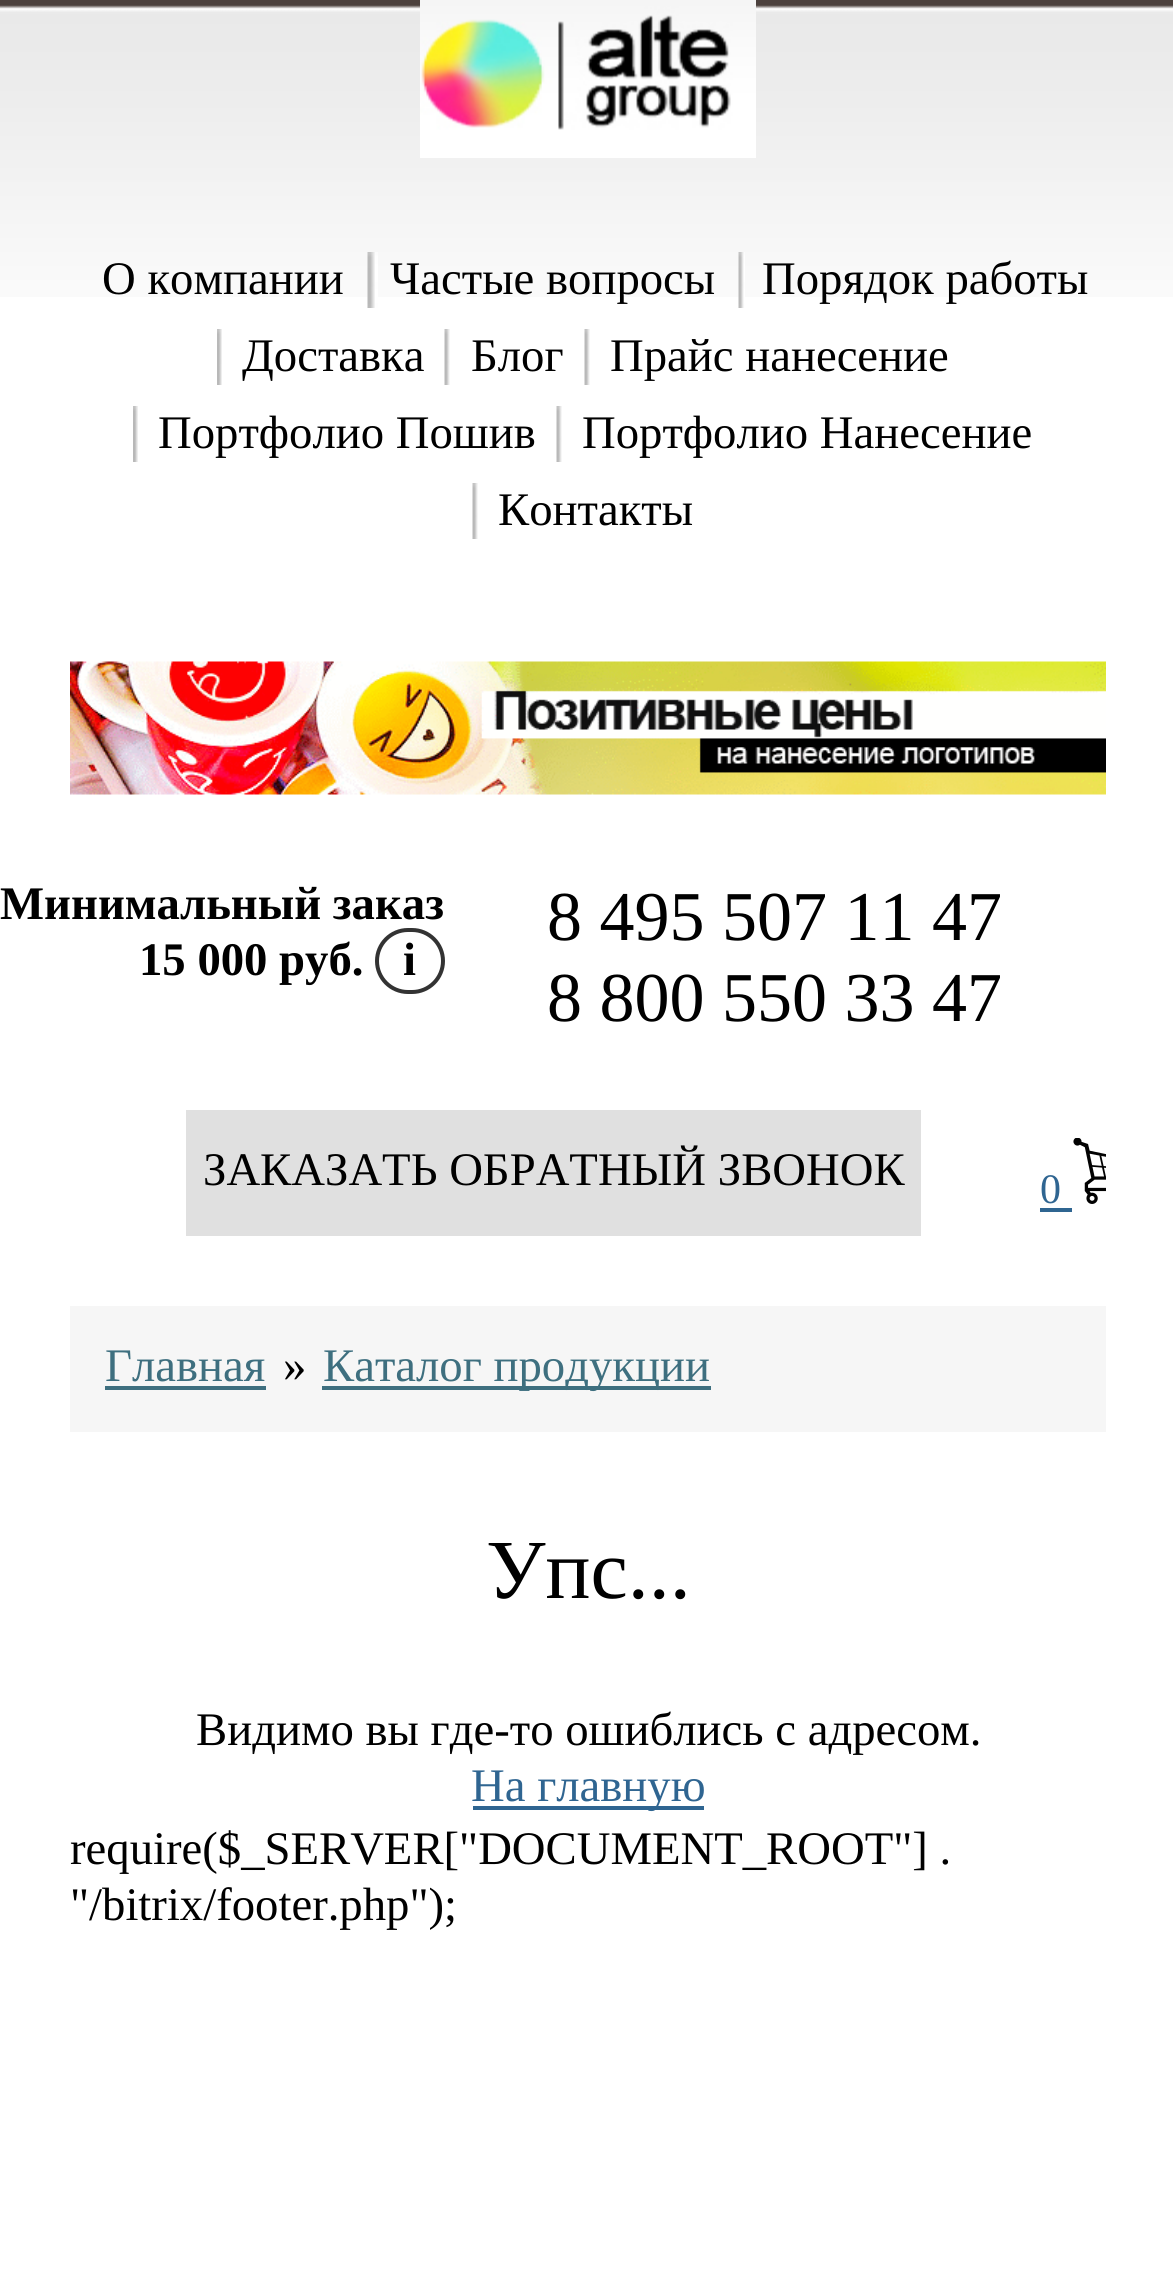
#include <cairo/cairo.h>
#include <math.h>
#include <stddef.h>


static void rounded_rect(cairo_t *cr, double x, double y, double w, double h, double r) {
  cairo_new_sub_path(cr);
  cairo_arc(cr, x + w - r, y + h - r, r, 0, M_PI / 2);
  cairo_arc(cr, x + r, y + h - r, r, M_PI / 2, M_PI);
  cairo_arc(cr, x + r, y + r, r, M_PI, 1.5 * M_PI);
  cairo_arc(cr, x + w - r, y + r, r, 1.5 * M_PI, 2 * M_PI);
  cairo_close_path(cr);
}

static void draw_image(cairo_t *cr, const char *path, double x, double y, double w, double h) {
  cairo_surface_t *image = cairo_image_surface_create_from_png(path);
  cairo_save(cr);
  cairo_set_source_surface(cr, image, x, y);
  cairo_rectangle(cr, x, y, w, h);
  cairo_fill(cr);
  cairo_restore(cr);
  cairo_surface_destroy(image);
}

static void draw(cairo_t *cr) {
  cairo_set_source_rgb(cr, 1, 1, 1);
  cairo_paint(cr);
  draw_image(cr, "images/1.png", 0, 0, 1173, 297);
  draw_image(cr, "images/2.png", 420, 0, 336, 158);
  draw_image(cr, "images/3.png", 367, 252, 11, 56);
  draw_image(cr, "images/4.png", 738, 252, 7, 56);
  draw_image(cr, "images/5.png", 217, 329, 5, 56);
  draw_image(cr, "images/6.png", 444, 329, 6, 56);
  draw_image(cr, "images/6.png", 584, 329, 6, 56);
  draw_image(cr, "images/7.png", 133, 406, 5, 56);
  draw_image(cr, "images/6.png", 556, 406, 6, 56);
  draw_image(cr, "images/6.png", 472, 483, 6, 56);
  draw_image(cr, "images/8.png", 70, 661, 1036, 134);
  rounded_rect(cr, 377, 930, 66, 62, 31);
  cairo_set_source_rgb(cr, 51 / 255.0, 51 / 255.0, 51 / 255.0);
  cairo_set_line_width(cr, 4);
  cairo_stroke(cr);
  cairo_set_source_rgb(cr, 224 / 255.0, 224 / 255.0, 224 / 255.0);
  cairo_rectangle(cr, 186, 1110, 735, 126);
  cairo_fill(cr);
  cairo_set_source_rgb(cr, 47 / 255.0, 101 / 255.0, 145 / 255.0);
  cairo_rectangle(cr, 1040, 1208, 32, 4);
  cairo_fill(cr);
  draw_image(cr, "images/9.png", 1073, 1138, 33, 66);
  cairo_set_source_rgb(cr, 246 / 255.0, 246 / 255.0, 246 / 255.0);
  cairo_rectangle(cr, 70, 1306, 1036, 126);
  cairo_fill(cr);
  cairo_set_source_rgb(cr, 62 / 255.0, 111 / 255.0, 127 / 255.0);
  cairo_rectangle(cr, 105, 1386, 161, 4);
  cairo_fill(cr);
  cairo_rectangle(cr, 322, 1386, 389, 4);
  cairo_fill(cr);
  cairo_set_source_rgb(cr, 47 / 255.0, 101 / 255.0, 145 / 255.0);
  cairo_rectangle(cr, 473, 1806, 231, 4);
  cairo_fill(cr);
  cairo_select_font_face(cr, "Liberation Serif", CAIRO_FONT_SLANT_NORMAL, CAIRO_FONT_WEIGHT_NORMAL);
  cairo_set_font_size(cr, 46.7);
  cairo_set_source_rgb(cr, 0, 0, 0);
  cairo_move_to(cr, 102, 294);
  cairo_show_text(cr, "О компании");
  cairo_move_to(cr, 390, 294);
  cairo_show_text(cr, "Частые вопросы");
  cairo_move_to(cr, 762, 294);
  cairo_show_text(cr, "Порядок работы");
  cairo_move_to(cr, 242, 371);
  cairo_show_text(cr, "Доставка");
  cairo_move_to(cr, 471, 371);
  cairo_show_text(cr, "Блог");
  cairo_move_to(cr, 610, 371);
  cairo_show_text(cr, "Прайс нанесение");
  cairo_move_to(cr, 158, 448);
  cairo_show_text(cr, "Портфолио Пошив");
  cairo_move_to(cr, 582, 448);
  cairo_show_text(cr, "Портфолио Нанесение");
  cairo_move_to(cr, 498, 525);
  cairo_show_text(cr, "Контакты");
  cairo_select_font_face(cr, "Liberation Serif", CAIRO_FONT_SLANT_NORMAL, CAIRO_FONT_WEIGHT_BOLD);
  cairo_move_to(cr, 0, 919);
  cairo_show_text(cr, "Минимальный заказ");
  cairo_move_to(cr, 139, 975);
  cairo_show_text(cr, "15 000 руб.");
  cairo_move_to(cr, 403, 975);
  cairo_show_text(cr, "i");
  cairo_select_font_face(cr, "Liberation Serif", CAIRO_FONT_SLANT_NORMAL, CAIRO_FONT_WEIGHT_NORMAL);
  cairo_set_font_size(cr, 70);
  cairo_move_to(cr, 547, 940);
  cairo_show_text(cr, "8 495 507 11 47");
  cairo_move_to(cr, 547, 1021);
  cairo_show_text(cr, "8 800 550 33 47");
  cairo_set_font_size(cr, 46.7);
  cairo_move_to(cr, 203, 1185);
  cairo_show_text(cr, "ЗАКАЗАТЬ ОБРАТНЫЙ ЗВОНОК");
  cairo_set_font_size(cr, 42);
  cairo_set_source_rgb(cr, 47 / 255.0, 101 / 255.0, 145 / 255.0);
  cairo_move_to(cr, 1040, 1203);
  cairo_show_text(cr, "0");
  cairo_set_font_size(cr, 46.7);
  cairo_set_source_rgb(cr, 62 / 255.0, 111 / 255.0, 127 / 255.0);
  cairo_move_to(cr, 105, 1381);
  cairo_show_text(cr, "Главная");
  cairo_set_source_rgb(cr, 0, 0, 0);
  cairo_move_to(cr, 283, 1381);
  cairo_show_text(cr, "»");
  cairo_set_source_rgb(cr, 62 / 255.0, 111 / 255.0, 127 / 255.0);
  cairo_move_to(cr, 323, 1381);
  cairo_show_text(cr, "Каталог продукции");
  cairo_set_font_size(cr, 84);
  cairo_set_source_rgb(cr, 0, 0, 0);
  cairo_move_to(cr, 486, 1598);
  cairo_show_text(cr, "Упс...");
  cairo_set_font_size(cr, 46.7);
  cairo_move_to(cr, 196, 1745);
  cairo_show_text(cr, "Видимо вы где-то ошиблись с адресом.");
  cairo_set_source_rgb(cr, 47 / 255.0, 101 / 255.0, 145 / 255.0);
  cairo_move_to(cr, 471, 1801);
  cairo_show_text(cr, "На главную");
  cairo_set_source_rgb(cr, 0, 0, 0);
  cairo_move_to(cr, 70, 1864);
  cairo_show_text(cr, "require($_SERVER[\"DOCUMENT_ROOT\"] .");
  cairo_move_to(cr, 70, 1920);
  cairo_show_text(cr, "\"/bitrix/footer.php\");");
}

int main(void) {
  cairo_surface_t *surface = cairo_image_surface_create(CAIRO_FORMAT_RGB24, 1173, 2288);
  cairo_t *cr = cairo_create(surface);
  cairo_font_options_t *options = cairo_font_options_create();
  cairo_font_options_set_hint_metrics(options, CAIRO_HINT_METRICS_OFF);
  cairo_font_options_set_hint_style(options, CAIRO_HINT_STYLE_NONE);
  cairo_set_font_options(cr, options);
  cairo_set_miter_limit(cr, 4);
  draw(cr);
  cairo_surface_write_to_png(surface, "out.png");
  cairo_font_options_destroy(options);
  cairo_destroy(cr);
  cairo_surface_destroy(surface);
  return 0;
}
